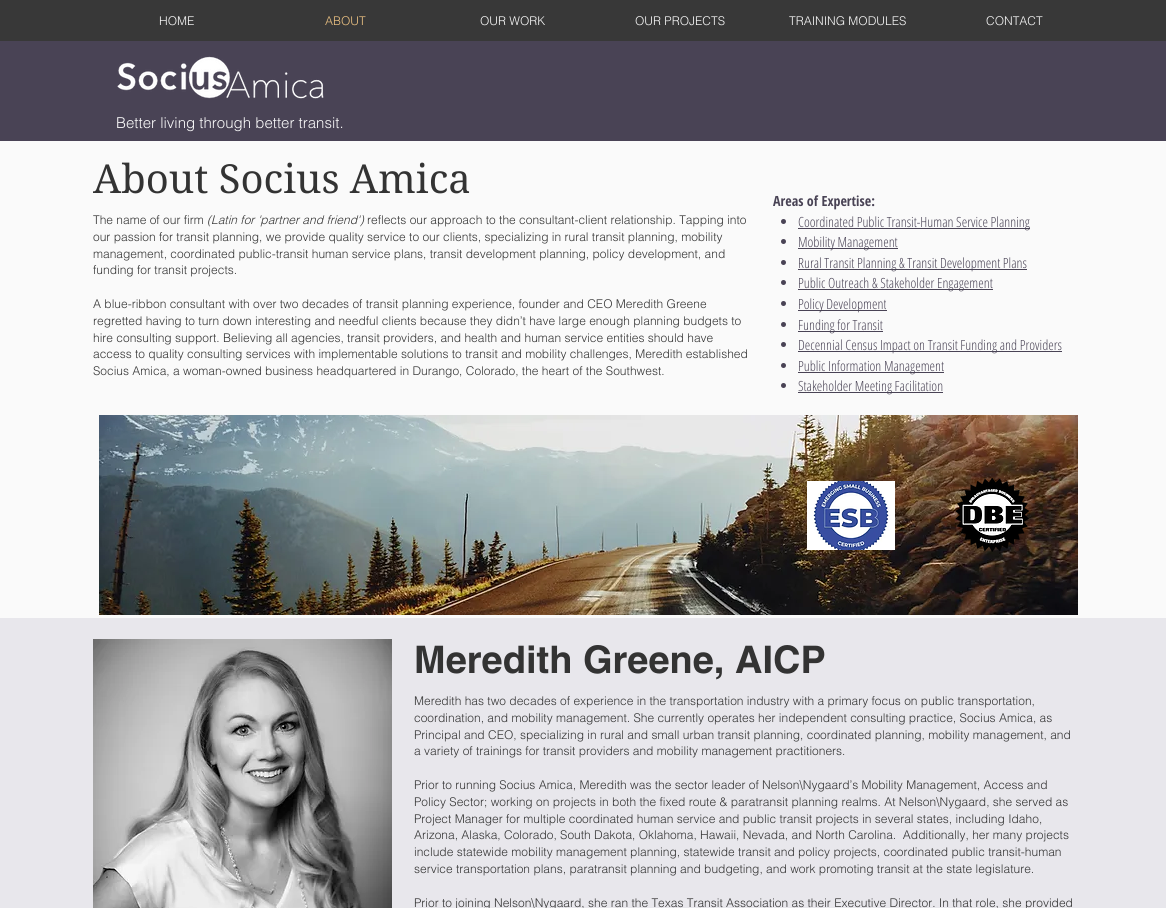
#include <cairo/cairo.h>
#include <math.h>
#include <stddef.h>


static void draw_image(cairo_t *cr, const char *path, double x, double y, double w, double h) {
  cairo_surface_t *image = cairo_image_surface_create_from_png(path);
  cairo_save(cr);
  cairo_set_source_surface(cr, image, x, y);
  cairo_rectangle(cr, x, y, w, h);
  cairo_fill(cr);
  cairo_restore(cr);
  cairo_surface_destroy(image);
}

static void draw(cairo_t *cr) {
  cairo_set_source_rgb(cr, 250 / 255.0, 250 / 255.0, 250 / 255.0);
  cairo_paint(cr);
  cairo_set_source_rgb(cr, 56 / 255.0, 56 / 255.0, 56 / 255.0);
  cairo_rectangle(cr, 0, 0, 1166, 41);
  cairo_fill(cr);
  cairo_set_source_rgb(cr, 73 / 255.0, 67 / 255.0, 85 / 255.0);
  cairo_rectangle(cr, 0, 41, 1166, 100);
  cairo_fill(cr);
  draw_image(cr, "images/1.png", 117, 56, 207, 43);
  cairo_arc(cr, 783.5, 221.5, 2.5, 0, 2 * M_PI);
  cairo_fill(cr);
  cairo_rectangle(cr, 798, 228, 232, 1);
  cairo_fill(cr);
  cairo_arc(cr, 783.5, 241.5, 2.5, 0, 2 * M_PI);
  cairo_fill(cr);
  cairo_rectangle(cr, 798, 248, 100, 1);
  cairo_fill(cr);
  cairo_arc(cr, 783.5, 262.5, 2.5, 0, 2 * M_PI);
  cairo_fill(cr);
  cairo_rectangle(cr, 798, 269, 229, 1);
  cairo_fill(cr);
  cairo_arc(cr, 783.5, 282.5, 2.5, 0, 2 * M_PI);
  cairo_fill(cr);
  cairo_rectangle(cr, 798, 289, 195, 1);
  cairo_fill(cr);
  cairo_arc(cr, 783.5, 303.5, 2.5, 0, 2 * M_PI);
  cairo_fill(cr);
  cairo_rectangle(cr, 798, 310, 89, 1);
  cairo_fill(cr);
  cairo_arc(cr, 783.5, 324.5, 2.5, 0, 2 * M_PI);
  cairo_fill(cr);
  cairo_rectangle(cr, 798, 331, 85, 1);
  cairo_fill(cr);
  cairo_arc(cr, 783.5, 344.5, 2.5, 0, 2 * M_PI);
  cairo_fill(cr);
  cairo_rectangle(cr, 798, 351, 264, 1);
  cairo_fill(cr);
  cairo_arc(cr, 783.5, 365.5, 2.5, 0, 2 * M_PI);
  cairo_fill(cr);
  cairo_rectangle(cr, 798, 372, 146, 1);
  cairo_fill(cr);
  cairo_arc(cr, 783.5, 385.5, 2.5, 0, 2 * M_PI);
  cairo_fill(cr);
  cairo_rectangle(cr, 798, 392, 145, 1);
  cairo_fill(cr);
  draw_image(cr, "images/2.png", 99, 415, 979, 200);
  draw_image(cr, "images/3.png", 807, 481, 88, 69);
  draw_image(cr, "images/4.png", 955, 478, 74, 74);
  cairo_set_source_rgb(cr, 232 / 255.0, 231 / 255.0, 236 / 255.0);
  cairo_rectangle(cr, 0, 618, 1166, 290);
  cairo_fill(cr);
  draw_image(cr, "images/5.png", 93, 639, 299, 269);
  cairo_select_font_face(cr, "helvetica Light", CAIRO_FONT_SLANT_NORMAL, CAIRO_FONT_WEIGHT_NORMAL);
  cairo_set_font_size(cr, 12);
  cairo_set_source_rgb(cr, 250 / 255.0, 250 / 255.0, 250 / 255.0);
  cairo_move_to(cr, 159, 25);
  cairo_show_text(cr, "HOME");
  cairo_set_source_rgb(cr, 238 / 255.0, 195 / 255.0, 131 / 255.0);
  cairo_move_to(cr, 325, 25);
  cairo_show_text(cr, "ABOUT");
  cairo_set_source_rgb(cr, 250 / 255.0, 250 / 255.0, 250 / 255.0);
  cairo_move_to(cr, 480, 25);
  cairo_show_text(cr, "OUR WORK");
  cairo_move_to(cr, 635, 25);
  cairo_show_text(cr, "OUR PROJECTS");
  cairo_move_to(cr, 789, 25);
  cairo_show_text(cr, "TRAINING MODULES");
  cairo_move_to(cr, 986, 25);
  cairo_show_text(cr, "CONTACT");
  cairo_set_font_size(cr, 15);
  cairo_move_to(cr, 116, 128);
  cairo_show_text(cr, "Better living through better transit.");
  cairo_select_font_face(cr, "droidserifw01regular", CAIRO_FONT_SLANT_NORMAL, CAIRO_FONT_WEIGHT_NORMAL);
  cairo_set_font_size(cr, 40);
  cairo_set_source_rgb(cr, 51 / 255.0, 51 / 255.0, 51 / 255.0);
  cairo_move_to(cr, 93, 193);
  cairo_show_text(cr, "About Socius Amica");
  cairo_select_font_face(cr, "helvetica Light", CAIRO_FONT_SLANT_NORMAL, CAIRO_FONT_WEIGHT_NORMAL);
  cairo_set_font_size(cr, 12);
  cairo_move_to(cr, 93, 224);
  cairo_show_text(cr, "The name of our firm");
  cairo_select_font_face(cr, "helvetica Light", CAIRO_FONT_SLANT_ITALIC, CAIRO_FONT_WEIGHT_NORMAL);
  cairo_move_to(cr, 207, 224);
  cairo_show_text(cr, "(Latin for 'partner and friend')");
  cairo_select_font_face(cr, "helvetica Light", CAIRO_FONT_SLANT_NORMAL, CAIRO_FONT_WEIGHT_NORMAL);
  cairo_move_to(cr, 367, 224);
  cairo_show_text(cr, "reflects our approach to the consultant-client relationship. Tapping into");
  cairo_move_to(cr, 93, 241);
  cairo_show_text(cr, "our passion for transit planning, we provide quality service to our clients, specializing in rural transit planning, mobility");
  cairo_move_to(cr, 93, 258);
  cairo_show_text(cr, "management, coordinated public-transit human service plans, transit development planning, policy development, and");
  cairo_move_to(cr, 93, 274);
  cairo_show_text(cr, "funding for transit projects.");
  cairo_move_to(cr, 93, 308);
  cairo_show_text(cr, "A blue-ribbon consultant with over two decades of transit planning experience, founder and CEO Meredith Greene");
  cairo_move_to(cr, 93, 325);
  cairo_show_text(cr, "regretted having to turn down interesting and needful clients because they didn’t have large enough planning budgets to");
  cairo_move_to(cr, 93, 342);
  cairo_show_text(cr, "hire consulting support. Believing all agencies, transit providers, and health and human service entities should have");
  cairo_move_to(cr, 93, 358);
  cairo_show_text(cr, "access to quality consulting services with implementable solutions to transit and mobility challenges, Meredith established");
  cairo_move_to(cr, 93, 375);
  cairo_show_text(cr, "Socius Amica, a woman-owned business headquartered in Durango, Colorado, the heart of the Southwest.");
  cairo_select_font_face(cr, "Open Sans Condensed", CAIRO_FONT_SLANT_NORMAL, CAIRO_FONT_WEIGHT_BOLD);
  cairo_set_font_size(cr, 14);
  cairo_set_source_rgb(cr, 73 / 255.0, 67 / 255.0, 85 / 255.0);
  cairo_move_to(cr, 773, 206);
  cairo_show_text(cr, "Areas of Expertise:");
  cairo_select_font_face(cr, "Open Sans Condensed Light", CAIRO_FONT_SLANT_NORMAL, CAIRO_FONT_WEIGHT_NORMAL);
  cairo_move_to(cr, 798, 227);
  cairo_show_text(cr, "Coordinated Public Transit-Human Service Planning");
  cairo_move_to(cr, 798, 247);
  cairo_show_text(cr, "Mobility Management");
  cairo_move_to(cr, 798, 268);
  cairo_show_text(cr, "Rural Transit Planning & Transit Development Plans");
  cairo_move_to(cr, 798, 288);
  cairo_show_text(cr, "Public Outreach & Stakeholder Engagement");
  cairo_move_to(cr, 798, 309);
  cairo_show_text(cr, "Policy Development");
  cairo_move_to(cr, 798, 330);
  cairo_show_text(cr, "Funding for Transit");
  cairo_move_to(cr, 798, 350);
  cairo_show_text(cr, "Decennial Census Impact on Transit Funding and Providers");
  cairo_move_to(cr, 798, 371);
  cairo_show_text(cr, "Public Information Management");
  cairo_move_to(cr, 798, 391);
  cairo_show_text(cr, "Stakeholder Meeting Facilitation");
  cairo_select_font_face(cr, "helvetica", CAIRO_FONT_SLANT_NORMAL, CAIRO_FONT_WEIGHT_BOLD);
  cairo_set_font_size(cr, 38);
  cairo_set_source_rgb(cr, 51 / 255.0, 51 / 255.0, 51 / 255.0);
  cairo_move_to(cr, 414, 673);
  cairo_show_text(cr, "Meredith Greene, AICP");
  cairo_select_font_face(cr, "helvetica Light", CAIRO_FONT_SLANT_NORMAL, CAIRO_FONT_WEIGHT_NORMAL);
  cairo_set_font_size(cr, 12);
  cairo_move_to(cr, 414, 705);
  cairo_show_text(cr, "Meredith has two decades of experience in the transportation industry with a primary focus on public transportation,");
  cairo_move_to(cr, 414, 722);
  cairo_show_text(cr, "coordination, and mobility management. She currently operates her independent consulting practice, Socius Amica, as");
  cairo_move_to(cr, 414, 739);
  cairo_show_text(cr, "Principal and CEO, specializing in rural and small urban transit planning, coordinated planning, mobility management, and");
  cairo_move_to(cr, 414, 755);
  cairo_show_text(cr, "a variety of trainings for transit providers and mobility management practitioners.");
  cairo_move_to(cr, 414, 789);
  cairo_show_text(cr, "Prior to running Socius Amica, Meredith was the sector leader of Nelson\\Nygaard’s Mobility Management, Access and");
  cairo_move_to(cr, 414, 806);
  cairo_show_text(cr, "Policy Sector; working on projects in both the fixed route & paratransit planning realms. At Nelson\\Nygaard, she served as");
  cairo_move_to(cr, 414, 823);
  cairo_show_text(cr, "Project Manager for multiple coordinated human service and public transit projects in several states, including Idaho,");
  cairo_move_to(cr, 414, 839);
  cairo_show_text(cr, "Arizona, Alaska, Colorado, South Dakota, Oklahoma, Hawaii, Nevada, and North Carolina.  Additionally, her many projects");
  cairo_move_to(cr, 414, 856);
  cairo_show_text(cr, "include statewide mobility management planning, statewide transit and policy projects, coordinated public transit-human");
  cairo_move_to(cr, 414, 873);
  cairo_show_text(cr, "service transportation plans, paratransit planning and budgeting, and work promoting transit at the state legislature.");
  cairo_move_to(cr, 414, 907);
  cairo_show_text(cr, "Prior to joining Nelson\\Nygaard, she ran the Texas Transit Association as their Executive Director. In that role, she provided");
}

int main(void) {
  cairo_surface_t *surface = cairo_image_surface_create(CAIRO_FORMAT_RGB24, 1166, 908);
  cairo_t *cr = cairo_create(surface);
  cairo_font_options_t *options = cairo_font_options_create();
  cairo_font_options_set_hint_metrics(options, CAIRO_HINT_METRICS_OFF);
  cairo_font_options_set_hint_style(options, CAIRO_HINT_STYLE_NONE);
  cairo_set_font_options(cr, options);
  cairo_set_miter_limit(cr, 4);
  draw(cr);
  cairo_surface_write_to_png(surface, "out.png");
  cairo_font_options_destroy(options);
  cairo_destroy(cr);
  cairo_surface_destroy(surface);
  return 0;
}
